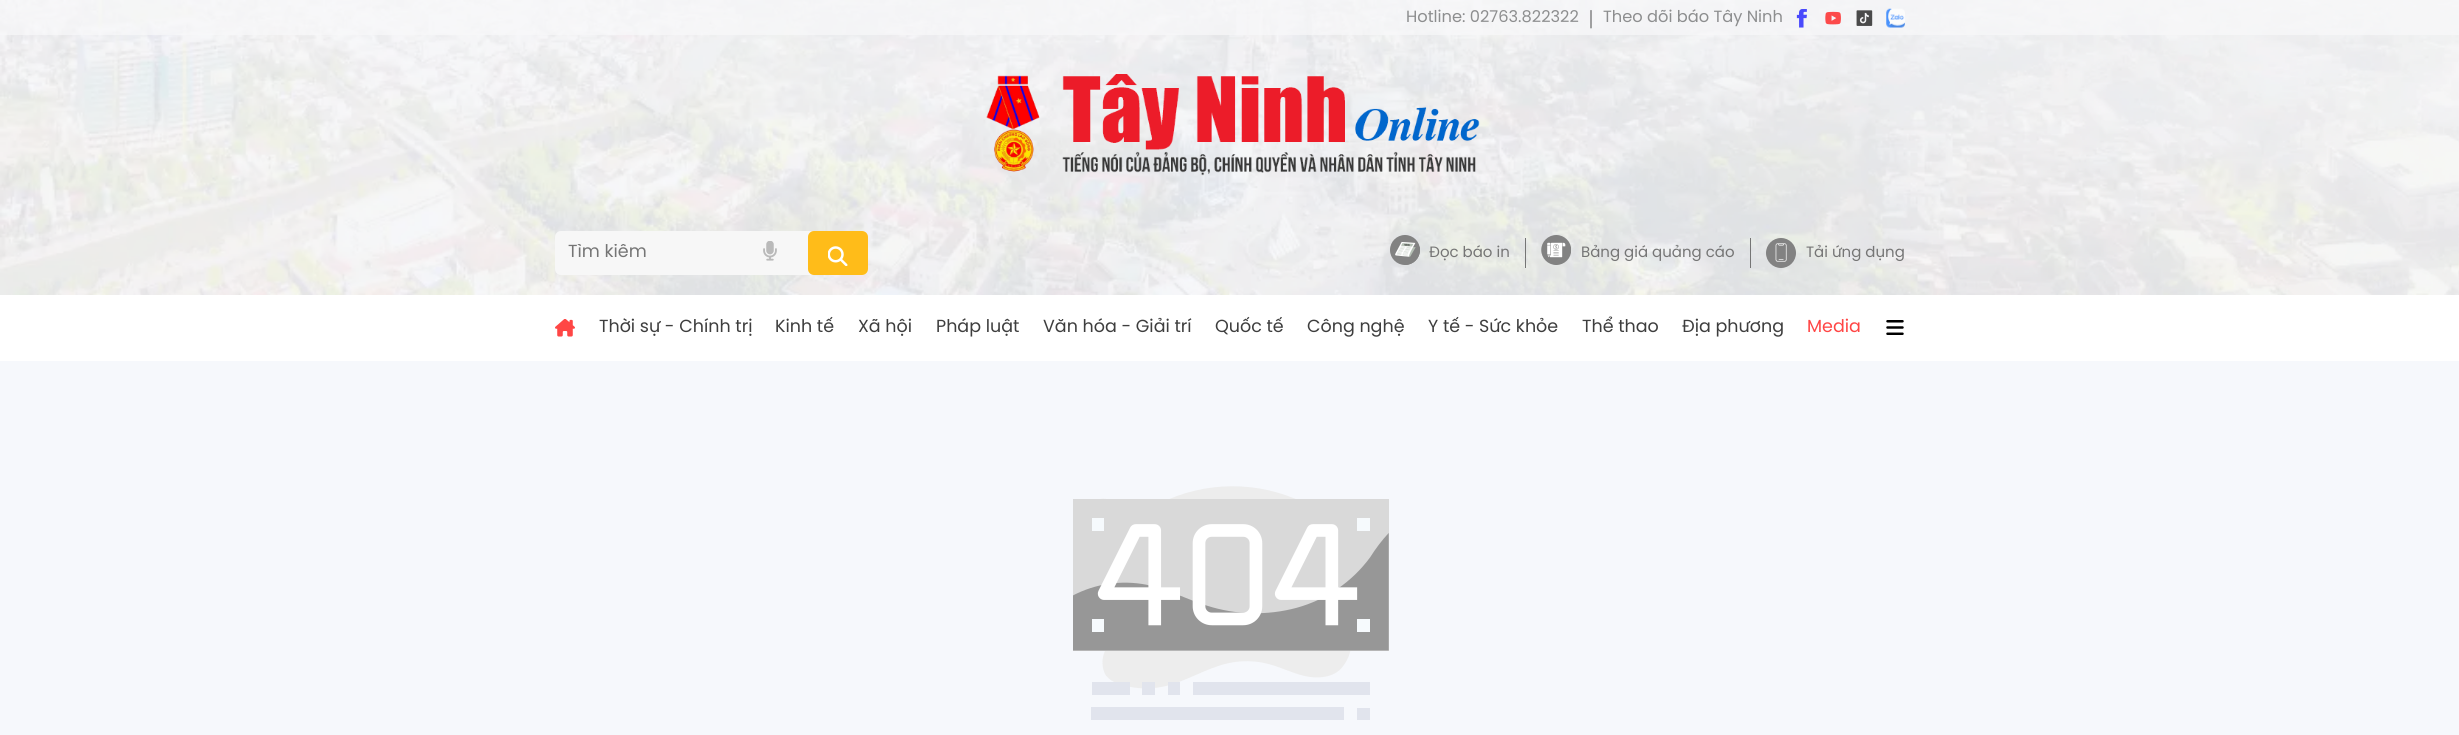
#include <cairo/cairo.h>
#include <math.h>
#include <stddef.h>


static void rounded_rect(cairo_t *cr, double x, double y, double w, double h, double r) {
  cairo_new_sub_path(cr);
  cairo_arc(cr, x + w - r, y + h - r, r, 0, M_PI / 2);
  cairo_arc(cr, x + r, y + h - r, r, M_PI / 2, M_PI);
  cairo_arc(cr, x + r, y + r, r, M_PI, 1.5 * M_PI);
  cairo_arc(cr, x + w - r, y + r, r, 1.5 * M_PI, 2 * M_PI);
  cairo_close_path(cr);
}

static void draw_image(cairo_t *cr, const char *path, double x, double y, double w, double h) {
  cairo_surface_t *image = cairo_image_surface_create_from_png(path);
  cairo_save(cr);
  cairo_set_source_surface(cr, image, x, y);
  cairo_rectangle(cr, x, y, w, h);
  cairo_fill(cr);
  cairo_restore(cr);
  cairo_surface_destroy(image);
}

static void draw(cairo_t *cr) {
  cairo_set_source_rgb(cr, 246 / 255.0, 248 / 255.0, 252 / 255.0);
  cairo_paint(cr);
  draw_image(cr, "images/1.png", 0, 0, 2459, 295);
  cairo_set_source_rgba(cr, 248 / 255.0, 249 / 255.0, 250 / 255.0, 0.7);
  cairo_rectangle(cr, 0, 0, 2459, 35);
  cairo_fill(cr);
  draw_image(cr, "images/2.png", 1796, 9, 11, 19);
  draw_image(cr, "images/3.png", 1825, 11, 16, 14);
  draw_image(cr, "images/4.png", 1856, 10, 17, 16);
  draw_image(cr, "images/5.png", 1886, 8, 19, 20);
  draw_image(cr, "images/6.png", 986, 74, 494, 102);
  cairo_set_source_rgb(cr, 247 / 255.0, 247 / 255.0, 247 / 255.0);
  rounded_rect(cr, 555, 231, 313, 44, 6);
  cairo_fill(cr);
  draw_image(cr, "images/7.png", 763, 241, 14, 20);
  cairo_set_source_rgb(cr, 1, 188 / 255.0, 25 / 255.0);
  rounded_rect(cr, 808, 231, 60, 44, 6);
  cairo_fill(cr);
  draw_image(cr, "images/8.png", 828, 246, 20, 20);
  draw_image(cr, "images/9.png", 1390, 235, 30, 30);
  cairo_set_source_rgb(cr, 117 / 255.0, 117 / 255.0, 117 / 255.0);
  cairo_rectangle(cr, 1525, 238, 1, 30);
  cairo_fill(cr);
  draw_image(cr, "images/10.png", 1541, 235, 30, 30);
  cairo_rectangle(cr, 1750, 238, 1, 30);
  cairo_fill(cr);
  cairo_set_source_rgb(cr, 130 / 255.0, 130 / 255.0, 130 / 255.0);
  cairo_arc(cr, 1781, 253, 15, 0, 2 * M_PI);
  cairo_fill(cr);
  draw_image(cr, "images/11.png", 1775, 243, 12, 19);
  cairo_set_source_rgb(cr, 1, 1, 1);
  cairo_rectangle(cr, 0, 295, 2459, 66);
  cairo_fill(cr);
  draw_image(cr, "images/12.png", 555, 319, 20, 18);
  draw_image(cr, "images/13.png", 1886, 320, 18, 15);
  draw_image(cr, "images/14.png", 1073, 486, 316, 234);
  cairo_select_font_face(cr, "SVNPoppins", CAIRO_FONT_SLANT_NORMAL, CAIRO_FONT_WEIGHT_NORMAL);
  cairo_set_font_size(cr, 16.25);
  cairo_set_source_rgb(cr, 141 / 255.0, 142 / 255.0, 143 / 255.0);
  cairo_move_to(cr, 1406, 22);
  cairo_show_text(cr, "Hotline: 02763.822322");
  cairo_select_font_face(cr, "Liberation Serif", CAIRO_FONT_SLANT_NORMAL, CAIRO_FONT_WEIGHT_NORMAL);
  cairo_set_font_size(cr, 20);
  cairo_set_source_rgb(cr, 73 / 255.0, 74 / 255.0, 74 / 255.0);
  cairo_move_to(cr, 1589, 24);
  cairo_show_text(cr, "|");
  cairo_select_font_face(cr, "SVNPoppins", CAIRO_FONT_SLANT_NORMAL, CAIRO_FONT_WEIGHT_NORMAL);
  cairo_set_font_size(cr, 16.25);
  cairo_set_source_rgb(cr, 141 / 255.0, 142 / 255.0, 143 / 255.0);
  cairo_move_to(cr, 1603, 22);
  cairo_show_text(cr, "Theo dõi báo Tây Ninh");
  cairo_save(cr);
  cairo_rectangle(cr, 568, 244, 175, 19);
  cairo_clip(cr);
  cairo_set_font_size(cr, 17.5);
  cairo_set_source_rgb(cr, 117 / 255.0, 117 / 255.0, 117 / 255.0);
  cairo_move_to(cr, 568, 257);
  cairo_show_text(cr, "Tìm kiếm");
  cairo_restore(cr);
  cairo_set_font_size(cr, 15);
  cairo_set_source_rgb(cr, 117 / 255.0, 117 / 255.0, 117 / 255.0);
  cairo_move_to(cr, 1429, 257);
  cairo_show_text(cr, "Đọc báo in");
  cairo_move_to(cr, 1581, 257);
  cairo_show_text(cr, "Bảng giá quảng cáo");
  cairo_move_to(cr, 1806, 257);
  cairo_show_text(cr, "Tải ứng dụng");
  cairo_set_font_size(cr, 17.5);
  cairo_set_source_rgb(cr, 62 / 255.0, 62 / 255.0, 62 / 255.0);
  cairo_move_to(cr, 599, 332);
  cairo_show_text(cr, "Thời sự - Chính trị");
  cairo_move_to(cr, 775, 332);
  cairo_show_text(cr, "Kinh tế");
  cairo_move_to(cr, 858, 332);
  cairo_show_text(cr, "Xã hội");
  cairo_move_to(cr, 936, 332);
  cairo_show_text(cr, "Pháp luật");
  cairo_move_to(cr, 1043, 332);
  cairo_show_text(cr, "Văn hóa - Giải trí");
  cairo_move_to(cr, 1215, 332);
  cairo_show_text(cr, "Quốc tế");
  cairo_move_to(cr, 1307, 332);
  cairo_show_text(cr, "Công nghệ");
  cairo_move_to(cr, 1428, 332);
  cairo_show_text(cr, "Y tế - Sức khỏe");
  cairo_move_to(cr, 1582, 332);
  cairo_show_text(cr, "Thể thao");
  cairo_move_to(cr, 1682, 332);
  cairo_show_text(cr, "Địa phương");
  cairo_set_source_rgb(cr, 1, 70 / 255.0, 69 / 255.0);
  cairo_move_to(cr, 1807, 332);
  cairo_show_text(cr, "Media");
}

int main(void) {
  cairo_surface_t *surface = cairo_image_surface_create(CAIRO_FORMAT_RGB24, 2459, 735);
  cairo_t *cr = cairo_create(surface);
  cairo_font_options_t *options = cairo_font_options_create();
  cairo_font_options_set_hint_metrics(options, CAIRO_HINT_METRICS_OFF);
  cairo_font_options_set_hint_style(options, CAIRO_HINT_STYLE_NONE);
  cairo_set_font_options(cr, options);
  cairo_set_miter_limit(cr, 4);
  draw(cr);
  cairo_surface_write_to_png(surface, "out.png");
  cairo_font_options_destroy(options);
  cairo_destroy(cr);
  cairo_surface_destroy(surface);
  return 0;
}
